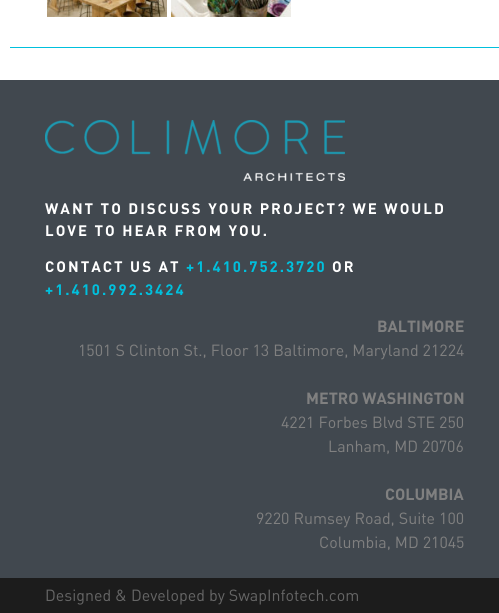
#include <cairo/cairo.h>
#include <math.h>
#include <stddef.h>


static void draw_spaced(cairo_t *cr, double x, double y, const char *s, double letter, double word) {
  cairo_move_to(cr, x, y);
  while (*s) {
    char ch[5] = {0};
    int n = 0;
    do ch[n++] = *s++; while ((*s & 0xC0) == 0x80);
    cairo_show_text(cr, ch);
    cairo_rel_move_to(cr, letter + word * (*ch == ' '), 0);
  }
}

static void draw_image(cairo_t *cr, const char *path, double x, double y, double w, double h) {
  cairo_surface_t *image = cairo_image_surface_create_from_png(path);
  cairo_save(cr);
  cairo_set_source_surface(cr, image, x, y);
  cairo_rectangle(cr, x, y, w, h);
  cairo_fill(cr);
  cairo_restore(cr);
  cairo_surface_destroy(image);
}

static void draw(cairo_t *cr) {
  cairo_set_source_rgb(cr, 1, 1, 1);
  cairo_paint(cr);
  draw_image(cr, "images/1.png", 47, 0, 120, 17);
  draw_image(cr, "images/2.png", 171, 0, 120, 17);
  cairo_set_source_rgb(cr, 0, 192 / 255.0, 221 / 255.0);
  cairo_rectangle(cr, 10, 47, 489, 1);
  cairo_fill(cr);
  cairo_set_source_rgb(cr, 65 / 255.0, 72 / 255.0, 79 / 255.0);
  cairo_rectangle(cr, 0, 80, 499, 498);
  cairo_fill(cr);
  draw_image(cr, "images/3.png", 45, 120, 300, 61);
  cairo_set_source_rgb(cr, 28 / 255.0, 28 / 255.0, 28 / 255.0);
  cairo_rectangle(cr, 0, 578, 499, 35);
  cairo_fill(cr);
  cairo_select_font_face(cr, "DIN", CAIRO_FONT_SLANT_NORMAL, CAIRO_FONT_WEIGHT_BOLD);
  cairo_set_font_size(cr, 15);
  cairo_set_source_rgb(cr, 1, 1, 1);
  draw_spaced(cr, 45, 214, "WANT TO DISCUSS YOUR PROJECT? WE WOULD", 2, 0);
  draw_spaced(cr, 45, 236, "LOVE TO HEAR FROM YOU.", 2, 0);
  draw_spaced(cr, 45, 272, "CONTACT US AT", 2, 0);
  cairo_set_source_rgb(cr, 0, 192 / 255.0, 221 / 255.0);
  draw_spaced(cr, 186, 272, "+1.410.752.3720", 2, 0);
  cairo_set_source_rgb(cr, 1, 1, 1);
  draw_spaced(cr, 332, 272, "OR", 2, 0);
  cairo_set_source_rgb(cr, 0, 192 / 255.0, 221 / 255.0);
  draw_spaced(cr, 45, 295, "+1.410.992.3424", 2, 0);
  cairo_set_font_size(cr, 16);
  cairo_set_source_rgb(cr, 128 / 255.0, 128 / 255.0, 128 / 255.0);
  cairo_move_to(cr, 377, 332);
  cairo_show_text(cr, "BALTIMORE");
  cairo_select_font_face(cr, "DIN", CAIRO_FONT_SLANT_NORMAL, CAIRO_FONT_WEIGHT_NORMAL);
  cairo_move_to(cr, 78, 356);
  cairo_show_text(cr, "1501 S Clinton St., Floor 13 Baltimore, Maryland 21224");
  cairo_select_font_face(cr, "DIN", CAIRO_FONT_SLANT_NORMAL, CAIRO_FONT_WEIGHT_BOLD);
  cairo_move_to(cr, 306, 404);
  cairo_show_text(cr, "METRO WASHINGTON");
  cairo_select_font_face(cr, "DIN", CAIRO_FONT_SLANT_NORMAL, CAIRO_FONT_WEIGHT_NORMAL);
  cairo_move_to(cr, 281, 428);
  cairo_show_text(cr, "4221 Forbes Blvd STE 250");
  cairo_move_to(cr, 328, 452);
  cairo_show_text(cr, "Lanham, MD 20706");
  cairo_select_font_face(cr, "DIN", CAIRO_FONT_SLANT_NORMAL, CAIRO_FONT_WEIGHT_BOLD);
  cairo_move_to(cr, 385, 500);
  cairo_show_text(cr, "COLUMBIA");
  cairo_select_font_face(cr, "DIN", CAIRO_FONT_SLANT_NORMAL, CAIRO_FONT_WEIGHT_NORMAL);
  cairo_move_to(cr, 256, 524);
  cairo_show_text(cr, "9220 Rumsey Road, Suite 100");
  cairo_move_to(cr, 319, 548);
  cairo_show_text(cr, "Columbia, MD 21045");
  cairo_set_source_rgb(cr, 102 / 255.0, 102 / 255.0, 102 / 255.0);
  cairo_move_to(cr, 45, 601);
  cairo_show_text(cr, "Designed & Developed by SwapInfotech.com");
}

int main(void) {
  cairo_surface_t *surface = cairo_image_surface_create(CAIRO_FORMAT_RGB24, 499, 613);
  cairo_t *cr = cairo_create(surface);
  cairo_font_options_t *options = cairo_font_options_create();
  cairo_font_options_set_hint_metrics(options, CAIRO_HINT_METRICS_OFF);
  cairo_font_options_set_hint_style(options, CAIRO_HINT_STYLE_NONE);
  cairo_set_font_options(cr, options);
  cairo_set_miter_limit(cr, 4);
  draw(cr);
  cairo_surface_write_to_png(surface, "out.png");
  cairo_font_options_destroy(options);
  cairo_destroy(cr);
  cairo_surface_destroy(surface);
  return 0;
}
